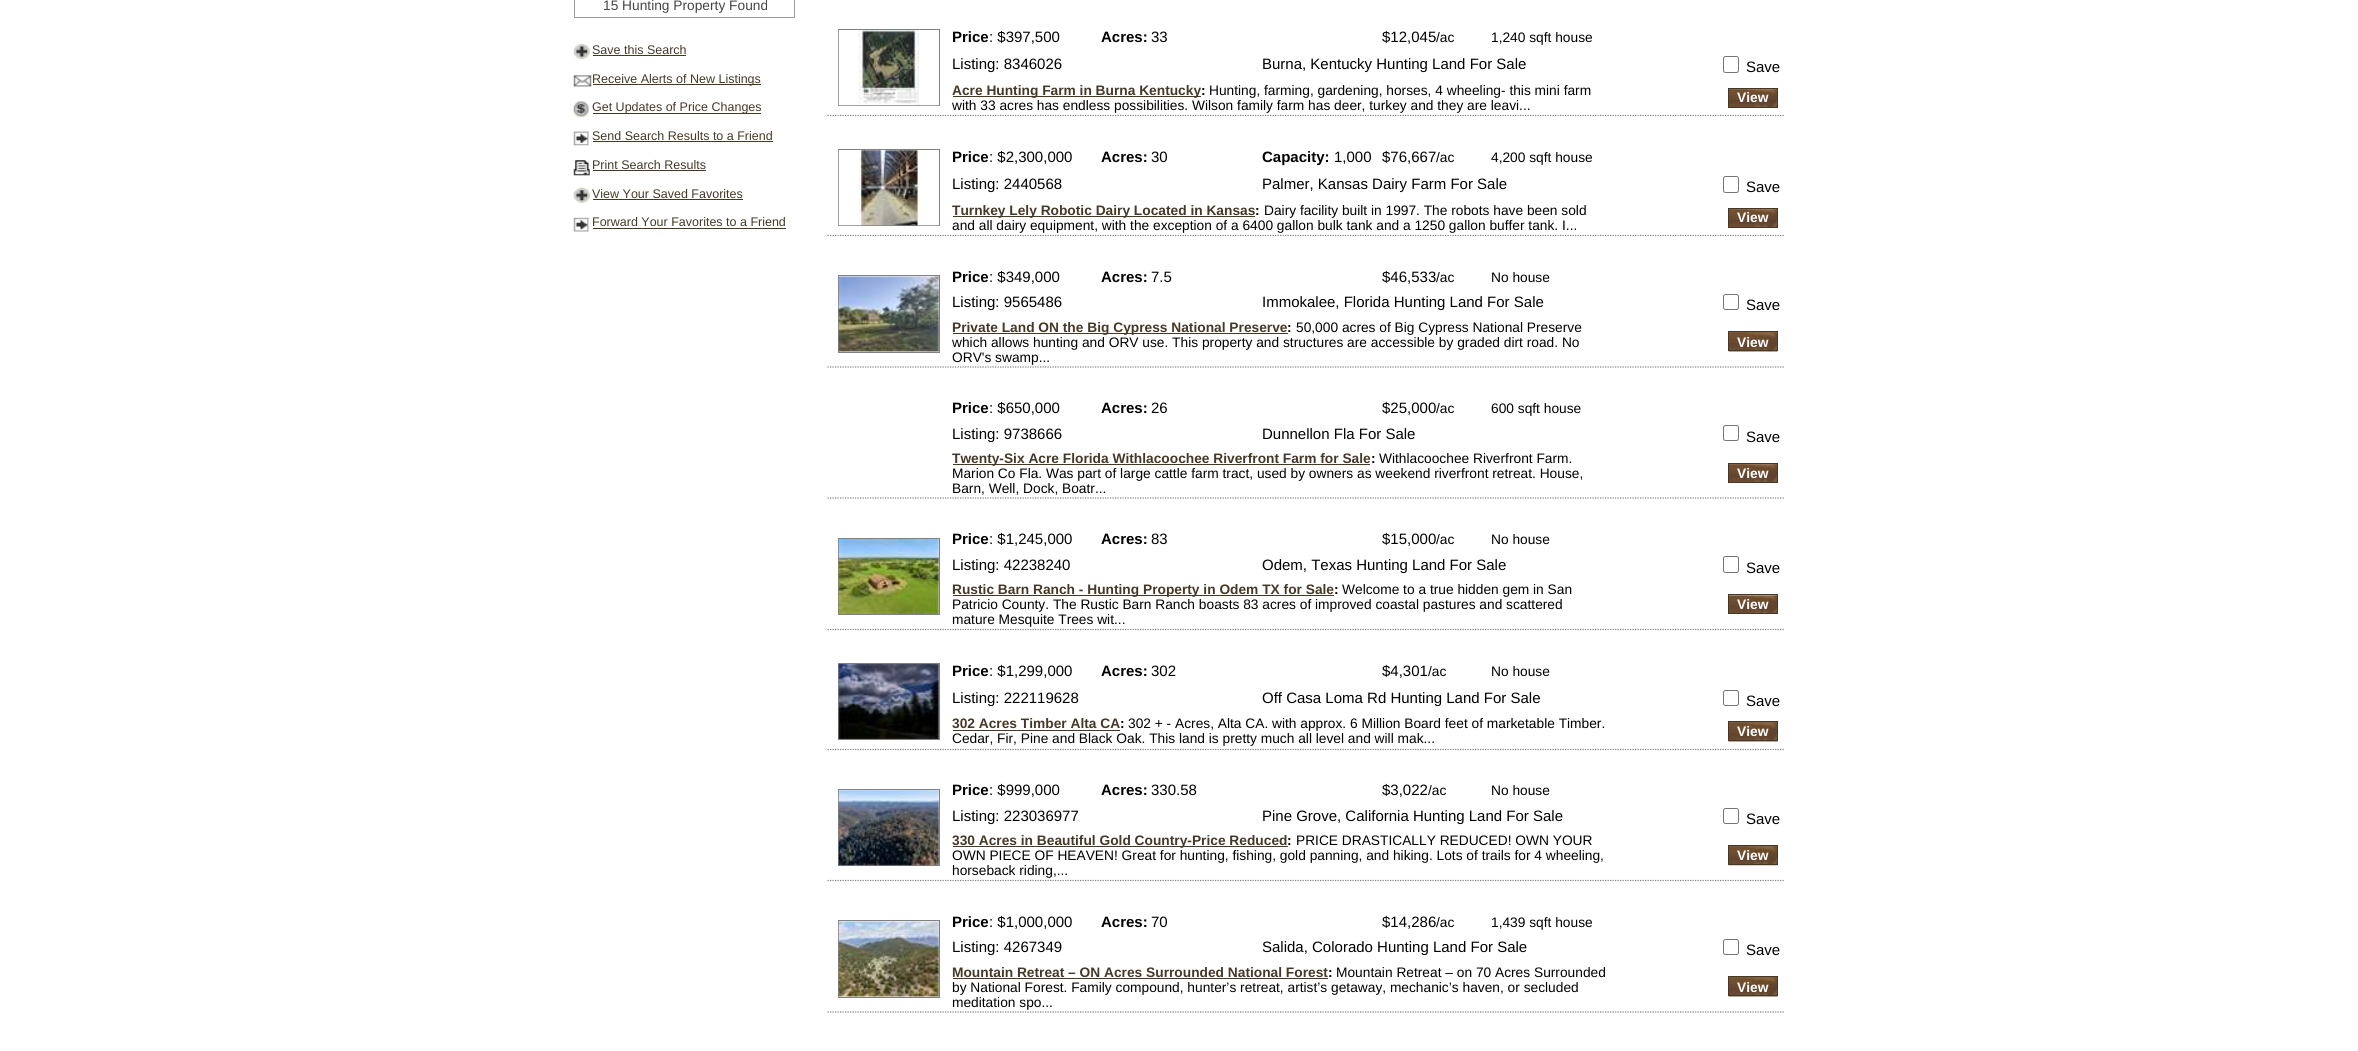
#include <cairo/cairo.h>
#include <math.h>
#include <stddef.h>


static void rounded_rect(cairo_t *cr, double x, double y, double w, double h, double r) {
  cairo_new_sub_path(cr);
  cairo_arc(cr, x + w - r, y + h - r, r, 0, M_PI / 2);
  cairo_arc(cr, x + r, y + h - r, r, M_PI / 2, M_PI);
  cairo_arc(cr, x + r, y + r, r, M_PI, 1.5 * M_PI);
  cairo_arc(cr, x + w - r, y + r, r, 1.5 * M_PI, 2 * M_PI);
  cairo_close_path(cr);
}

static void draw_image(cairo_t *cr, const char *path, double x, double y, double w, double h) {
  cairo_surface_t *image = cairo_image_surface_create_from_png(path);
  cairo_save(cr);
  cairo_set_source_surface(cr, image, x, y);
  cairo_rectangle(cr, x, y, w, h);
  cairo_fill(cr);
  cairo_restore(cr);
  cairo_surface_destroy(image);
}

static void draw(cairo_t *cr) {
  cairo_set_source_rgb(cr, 1, 1, 1);
  cairo_paint(cr);
  cairo_rectangle(cr, 574.5, -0.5, 220, 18);
  cairo_set_source_rgb(cr, 153 / 255.0, 153 / 255.0, 153 / 255.0);
  cairo_set_line_width(cr, 1);
  cairo_stroke(cr);
  draw_image(cr, "images/1.png", 573, 44, 17, 16);
  cairo_set_source_rgb(cr, 70 / 255.0, 56 / 255.0, 38 / 255.0);
  cairo_rectangle(cr, 593, 55, 93, 1);
  cairo_fill(cr);
  draw_image(cr, "images/2.png", 573, 75, 19, 12);
  cairo_rectangle(cr, 593, 84, 168, 1);
  cairo_fill(cr);
  draw_image(cr, "images/3.png", 573, 101, 16, 16);
  cairo_rectangle(cr, 593, 113, 168, 1);
  cairo_fill(cr);
  draw_image(cr, "images/4.png", 573, 131, 16, 15);
  cairo_rectangle(cr, 593, 141, 180, 1);
  cairo_fill(cr);
  draw_image(cr, "images/5.png", 573, 160, 17, 16);
  cairo_rectangle(cr, 593, 170, 113, 1);
  cairo_fill(cr);
  draw_image(cr, "images/6.png", 573, 187, 17, 16);
  cairo_rectangle(cr, 593, 199, 150, 1);
  cairo_fill(cr);
  draw_image(cr, "images/7.png", 573, 217, 16, 15);
  cairo_rectangle(cr, 593, 228, 193, 1);
  cairo_fill(cr);
  cairo_rectangle(cr, 838.5, 29.5, 101, 76);
  cairo_set_source_rgb(cr, 128 / 255.0, 128 / 255.0, 128 / 255.0);
  cairo_stroke(cr);
  draw_image(cr, "images/8.png", 838, 30, 101, 76);
  rounded_rect(cr, 1723.5, 56.5, 15, 16, 2);
  cairo_set_source_rgb(cr, 118 / 255.0, 118 / 255.0, 118 / 255.0);
  cairo_stroke(cr);
  cairo_set_source_rgb(cr, 70 / 255.0, 56 / 255.0, 38 / 255.0);
  cairo_rectangle(cr, 953, 96, 248, 1);
  cairo_fill(cr);
  draw_image(cr, "images/9.png", 1729, 89, 48, 18);
  cairo_rectangle(cr, 1728.5, 88.5, 49, 19);
  cairo_stroke(cr);
  cairo_new_path(cr);
  cairo_move_to(cr, 827.5, 115.5);
  cairo_line_to(cr, 1784, 115.5);
  cairo_set_source_rgb(cr, 128 / 255.0, 128 / 255.0, 128 / 255.0);
  cairo_set_line_width(cr, 1.2);
  cairo_set_dash(cr, (double[]){1.25, 1.25}, 2, 0);
  cairo_stroke(cr);
  cairo_rectangle(cr, 838.5, 149.5, 101, 76);
  cairo_set_line_width(cr, 1);
  cairo_set_dash(cr, NULL, 0, 0);
  cairo_stroke(cr);
  draw_image(cr, "images/10.png", 838, 150, 101, 76);
  rounded_rect(cr, 1723.5, 176.5, 15, 16, 2);
  cairo_set_source_rgb(cr, 118 / 255.0, 118 / 255.0, 118 / 255.0);
  cairo_stroke(cr);
  cairo_set_source_rgb(cr, 70 / 255.0, 56 / 255.0, 38 / 255.0);
  cairo_rectangle(cr, 953, 216, 302, 1);
  cairo_fill(cr);
  draw_image(cr, "images/11.png", 1729, 209, 48, 18);
  cairo_rectangle(cr, 1728.5, 208.5, 49, 19);
  cairo_stroke(cr);
  cairo_new_path(cr);
  cairo_move_to(cr, 827.5, 235.5);
  cairo_line_to(cr, 1784, 235.5);
  cairo_set_source_rgb(cr, 128 / 255.0, 128 / 255.0, 128 / 255.0);
  cairo_set_line_width(cr, 1.2);
  cairo_set_dash(cr, (double[]){1.25, 1.25}, 2, 0);
  cairo_stroke(cr);
  cairo_rectangle(cr, 838.5, 275.5, 101, 77);
  cairo_set_line_width(cr, 1);
  cairo_set_dash(cr, NULL, 0, 0);
  cairo_stroke(cr);
  draw_image(cr, "images/12.png", 838, 276, 101, 76);
  rounded_rect(cr, 1723.5, 294.5, 15, 15, 2);
  cairo_set_source_rgb(cr, 118 / 255.0, 118 / 255.0, 118 / 255.0);
  cairo_stroke(cr);
  cairo_set_source_rgb(cr, 70 / 255.0, 56 / 255.0, 38 / 255.0);
  cairo_rectangle(cr, 953, 333, 335, 1);
  cairo_fill(cr);
  cairo_set_source_rgb(cr, 123 / 255.0, 98 / 255.0, 66 / 255.0);
  cairo_rectangle(cr, 1729, 332, 48, 1);
  cairo_fill(cr);
  draw_image(cr, "images/13.png", 1728, 332, 50, 20);
  cairo_rectangle(cr, 1728.5, 331.5, 49, 19);
  cairo_set_source_rgb(cr, 70 / 255.0, 56 / 255.0, 38 / 255.0);
  cairo_stroke(cr);
  cairo_new_path(cr);
  cairo_move_to(cr, 827.5, 367);
  cairo_line_to(cr, 1784, 367);
  cairo_set_source_rgb(cr, 128 / 255.0, 128 / 255.0, 128 / 255.0);
  cairo_set_line_width(cr, 1.2);
  cairo_set_dash(cr, (double[]){1.25, 1.25}, 2, 0);
  cairo_stroke(cr);
  rounded_rect(cr, 1723.5, 425.5, 15, 15, 2);
  cairo_set_source_rgb(cr, 118 / 255.0, 118 / 255.0, 118 / 255.0);
  cairo_set_line_width(cr, 1);
  cairo_set_dash(cr, NULL, 0, 0);
  cairo_stroke(cr);
  cairo_set_source_rgb(cr, 70 / 255.0, 56 / 255.0, 38 / 255.0);
  cairo_rectangle(cr, 953, 464, 417, 1);
  cairo_fill(cr);
  draw_image(cr, "images/14.png", 1729, 464, 48, 18);
  cairo_rectangle(cr, 1728.5, 463.5, 49, 19);
  cairo_stroke(cr);
  cairo_new_path(cr);
  cairo_move_to(cr, 827.5, 498);
  cairo_line_to(cr, 1784, 498);
  cairo_set_source_rgb(cr, 128 / 255.0, 128 / 255.0, 128 / 255.0);
  cairo_set_line_width(cr, 1.2);
  cairo_set_dash(cr, (double[]){1.25, 1.25}, 2, 0);
  cairo_stroke(cr);
  cairo_rectangle(cr, 838.5, 538.5, 101, 76);
  cairo_set_line_width(cr, 1);
  cairo_set_dash(cr, NULL, 0, 0);
  cairo_stroke(cr);
  draw_image(cr, "images/15.png", 838, 539, 101, 75);
  rounded_rect(cr, 1723.5, 556.5, 15, 16, 2);
  cairo_set_source_rgb(cr, 118 / 255.0, 118 / 255.0, 118 / 255.0);
  cairo_stroke(cr);
  cairo_set_source_rgb(cr, 70 / 255.0, 56 / 255.0, 38 / 255.0);
  cairo_rectangle(cr, 953, 595, 381, 1);
  cairo_fill(cr);
  draw_image(cr, "images/16.png", 1729, 595, 48, 18);
  cairo_rectangle(cr, 1728.5, 594.5, 49, 19);
  cairo_stroke(cr);
  cairo_new_path(cr);
  cairo_move_to(cr, 827.5, 629.5);
  cairo_line_to(cr, 1784, 629.5);
  cairo_set_source_rgb(cr, 128 / 255.0, 128 / 255.0, 128 / 255.0);
  cairo_set_line_width(cr, 1.2);
  cairo_set_dash(cr, (double[]){1.25, 1.25}, 2, 0);
  cairo_stroke(cr);
  cairo_rectangle(cr, 838.5, 663.5, 101, 76);
  cairo_set_line_width(cr, 1);
  cairo_set_dash(cr, NULL, 0, 0);
  cairo_stroke(cr);
  draw_image(cr, "images/17.png", 838, 664, 101, 75);
  rounded_rect(cr, 1723.5, 690.5, 15, 15, 2);
  cairo_set_source_rgb(cr, 118 / 255.0, 118 / 255.0, 118 / 255.0);
  cairo_stroke(cr);
  cairo_set_source_rgb(cr, 70 / 255.0, 56 / 255.0, 38 / 255.0);
  cairo_rectangle(cr, 953, 730, 167, 1);
  cairo_fill(cr);
  cairo_set_source_rgb(cr, 123 / 255.0, 98 / 255.0, 66 / 255.0);
  cairo_rectangle(cr, 1729, 722, 48, 1);
  cairo_fill(cr);
  draw_image(cr, "images/18.png", 1728, 722, 50, 20);
  cairo_rectangle(cr, 1728.5, 721.5, 49, 19);
  cairo_set_source_rgb(cr, 70 / 255.0, 56 / 255.0, 38 / 255.0);
  cairo_stroke(cr);
  cairo_new_path(cr);
  cairo_move_to(cr, 827.5, 749.5);
  cairo_line_to(cr, 1784, 749.5);
  cairo_set_source_rgb(cr, 128 / 255.0, 128 / 255.0, 128 / 255.0);
  cairo_set_line_width(cr, 1.2);
  cairo_set_dash(cr, (double[]){1.25, 1.25}, 2, 0);
  cairo_stroke(cr);
  cairo_rectangle(cr, 838.5, 789.5, 101, 76);
  cairo_set_line_width(cr, 1);
  cairo_set_dash(cr, NULL, 0, 0);
  cairo_stroke(cr);
  draw_image(cr, "images/19.png", 838, 790, 101, 76);
  rounded_rect(cr, 1723.5, 808.5, 15, 15, 2);
  cairo_set_source_rgb(cr, 118 / 255.0, 118 / 255.0, 118 / 255.0);
  cairo_stroke(cr);
  cairo_set_source_rgb(cr, 70 / 255.0, 56 / 255.0, 38 / 255.0);
  cairo_rectangle(cr, 953, 846, 335, 1);
  cairo_fill(cr);
  cairo_set_source_rgb(cr, 123 / 255.0, 98 / 255.0, 66 / 255.0);
  cairo_rectangle(cr, 1729, 846, 48, 1);
  cairo_fill(cr);
  draw_image(cr, "images/20.png", 1728, 846, 50, 20);
  cairo_rectangle(cr, 1728.5, 845.5, 49, 19);
  cairo_set_source_rgb(cr, 70 / 255.0, 56 / 255.0, 38 / 255.0);
  cairo_stroke(cr);
  cairo_new_path(cr);
  cairo_move_to(cr, 827.5, 880.5);
  cairo_line_to(cr, 1784, 880.5);
  cairo_set_source_rgb(cr, 128 / 255.0, 128 / 255.0, 128 / 255.0);
  cairo_set_line_width(cr, 1.2);
  cairo_set_dash(cr, (double[]){1.25, 1.25}, 2, 0);
  cairo_stroke(cr);
  cairo_rectangle(cr, 838.5, 920.5, 101, 77);
  cairo_set_line_width(cr, 1);
  cairo_set_dash(cr, NULL, 0, 0);
  cairo_stroke(cr);
  draw_image(cr, "images/21.png", 838, 921, 101, 76);
  rounded_rect(cr, 1723.5, 939.5, 15, 15, 2);
  cairo_set_source_rgb(cr, 118 / 255.0, 118 / 255.0, 118 / 255.0);
  cairo_stroke(cr);
  cairo_set_source_rgb(cr, 70 / 255.0, 56 / 255.0, 38 / 255.0);
  cairo_rectangle(cr, 953, 978, 375, 1);
  cairo_fill(cr);
  cairo_set_source_rgb(cr, 123 / 255.0, 98 / 255.0, 66 / 255.0);
  cairo_rectangle(cr, 1729, 977, 48, 1);
  cairo_fill(cr);
  draw_image(cr, "images/22.png", 1728, 977, 50, 20);
  cairo_rectangle(cr, 1728.5, 976.5, 49, 19);
  cairo_set_source_rgb(cr, 70 / 255.0, 56 / 255.0, 38 / 255.0);
  cairo_stroke(cr);
  cairo_new_path(cr);
  cairo_move_to(cr, 827.5, 1012);
  cairo_line_to(cr, 1784, 1012);
  cairo_set_source_rgb(cr, 128 / 255.0, 128 / 255.0, 128 / 255.0);
  cairo_set_line_width(cr, 1.2);
  cairo_set_dash(cr, (double[]){1.25, 1.25}, 2, 0);
  cairo_stroke(cr);
  cairo_select_font_face(cr, "Liberation Sans", CAIRO_FONT_SLANT_NORMAL, CAIRO_FONT_WEIGHT_NORMAL);
  cairo_set_font_size(cr, 13.75);
  cairo_set_source_rgb(cr, 68 / 255.0, 68 / 255.0, 68 / 255.0);
  cairo_move_to(cr, 603, 10);
  cairo_show_text(cr, "15 Hunting Property Found");
  cairo_set_font_size(cr, 12.5);
  cairo_set_source_rgb(cr, 70 / 255.0, 56 / 255.0, 38 / 255.0);
  cairo_move_to(cr, 592, 54);
  cairo_show_text(cr, "Save this Search");
  cairo_move_to(cr, 592, 83);
  cairo_show_text(cr, "Receive Alerts of New Listings");
  cairo_move_to(cr, 592, 111);
  cairo_show_text(cr, "Get Updates of Price Changes");
  cairo_move_to(cr, 592, 140);
  cairo_show_text(cr, "Send Search Results to a Friend");
  cairo_move_to(cr, 592, 169);
  cairo_show_text(cr, "Print Search Results");
  cairo_move_to(cr, 592, 198);
  cairo_show_text(cr, "View Your Saved Favorites");
  cairo_move_to(cr, 592, 226);
  cairo_show_text(cr, "Forward Your Favorites to a Friend");
  cairo_select_font_face(cr, "Liberation Sans", CAIRO_FONT_SLANT_NORMAL, CAIRO_FONT_WEIGHT_BOLD);
  cairo_set_font_size(cr, 15);
  cairo_set_source_rgb(cr, 0, 0, 0);
  cairo_move_to(cr, 952, 42);
  cairo_show_text(cr, "Price");
  cairo_select_font_face(cr, "Liberation Sans", CAIRO_FONT_SLANT_NORMAL, CAIRO_FONT_WEIGHT_NORMAL);
  cairo_move_to(cr, 989, 42);
  cairo_show_text(cr, ": $397,500");
  cairo_select_font_face(cr, "Liberation Sans", CAIRO_FONT_SLANT_NORMAL, CAIRO_FONT_WEIGHT_BOLD);
  cairo_move_to(cr, 1101, 42);
  cairo_show_text(cr, "Acres:");
  cairo_select_font_face(cr, "Liberation Sans", CAIRO_FONT_SLANT_NORMAL, CAIRO_FONT_WEIGHT_NORMAL);
  cairo_move_to(cr, 1151, 42);
  cairo_show_text(cr, "33");
  cairo_move_to(cr, 1382, 42);
  cairo_show_text(cr, "$12,045");
  cairo_set_font_size(cr, 13.75);
  cairo_move_to(cr, 1436, 42);
  cairo_show_text(cr, "/ac");
  cairo_move_to(cr, 1491, 42);
  cairo_show_text(cr, "1,240 sqft house");
  cairo_set_font_size(cr, 15);
  cairo_move_to(cr, 952, 69);
  cairo_show_text(cr, "Listing: 8346026");
  cairo_move_to(cr, 1262, 69);
  cairo_show_text(cr, "Burna, Kentucky Hunting Land For Sale");
  cairo_move_to(cr, 1746, 72);
  cairo_show_text(cr, "Save");
  cairo_select_font_face(cr, "Liberation Sans", CAIRO_FONT_SLANT_NORMAL, CAIRO_FONT_WEIGHT_BOLD);
  cairo_set_font_size(cr, 13.75);
  cairo_set_source_rgb(cr, 70 / 255.0, 56 / 255.0, 38 / 255.0);
  cairo_move_to(cr, 952, 95);
  cairo_show_text(cr, "Acre Hunting Farm in Burna Kentucky");
  cairo_set_source_rgb(cr, 0, 0, 0);
  cairo_move_to(cr, 1201, 95);
  cairo_show_text(cr, ":");
  cairo_select_font_face(cr, "Liberation Sans", CAIRO_FONT_SLANT_NORMAL, CAIRO_FONT_WEIGHT_NORMAL);
  cairo_move_to(cr, 1209, 95);
  cairo_show_text(cr, "Hunting, farming, gardening, horses, 4 wheeling- this mini farm");
  cairo_move_to(cr, 952, 110);
  cairo_show_text(cr, "with 33 acres has endless possibilities. Wilson family farm has deer, turkey and they are leavi...");
  cairo_select_font_face(cr, "Liberation Sans", CAIRO_FONT_SLANT_NORMAL, CAIRO_FONT_WEIGHT_BOLD);
  cairo_set_source_rgb(cr, 1, 1, 1);
  cairo_move_to(cr, 1737, 102);
  cairo_show_text(cr, "View");
  cairo_set_font_size(cr, 15);
  cairo_set_source_rgb(cr, 0, 0, 0);
  cairo_move_to(cr, 952, 162);
  cairo_show_text(cr, "Price");
  cairo_select_font_face(cr, "Liberation Sans", CAIRO_FONT_SLANT_NORMAL, CAIRO_FONT_WEIGHT_NORMAL);
  cairo_move_to(cr, 989, 162);
  cairo_show_text(cr, ": $2,300,000");
  cairo_select_font_face(cr, "Liberation Sans", CAIRO_FONT_SLANT_NORMAL, CAIRO_FONT_WEIGHT_BOLD);
  cairo_move_to(cr, 1101, 162);
  cairo_show_text(cr, "Acres:");
  cairo_select_font_face(cr, "Liberation Sans", CAIRO_FONT_SLANT_NORMAL, CAIRO_FONT_WEIGHT_NORMAL);
  cairo_move_to(cr, 1151, 162);
  cairo_show_text(cr, "30");
  cairo_select_font_face(cr, "Liberation Sans", CAIRO_FONT_SLANT_NORMAL, CAIRO_FONT_WEIGHT_BOLD);
  cairo_move_to(cr, 1262, 162);
  cairo_show_text(cr, "Capacity:");
  cairo_select_font_face(cr, "Liberation Sans", CAIRO_FONT_SLANT_NORMAL, CAIRO_FONT_WEIGHT_NORMAL);
  cairo_move_to(cr, 1334, 162);
  cairo_show_text(cr, "1,000");
  cairo_move_to(cr, 1382, 162);
  cairo_show_text(cr, "$76,667");
  cairo_set_font_size(cr, 13.75);
  cairo_move_to(cr, 1436, 162);
  cairo_show_text(cr, "/ac");
  cairo_move_to(cr, 1491, 162);
  cairo_show_text(cr, "4,200 sqft house");
  cairo_set_font_size(cr, 15);
  cairo_move_to(cr, 952, 189);
  cairo_show_text(cr, "Listing: 2440568");
  cairo_move_to(cr, 1262, 189);
  cairo_show_text(cr, "Palmer, Kansas Dairy Farm For Sale");
  cairo_move_to(cr, 1746, 192);
  cairo_show_text(cr, "Save");
  cairo_select_font_face(cr, "Liberation Sans", CAIRO_FONT_SLANT_NORMAL, CAIRO_FONT_WEIGHT_BOLD);
  cairo_set_font_size(cr, 13.75);
  cairo_set_source_rgb(cr, 70 / 255.0, 56 / 255.0, 38 / 255.0);
  cairo_move_to(cr, 952, 215);
  cairo_show_text(cr, "Turnkey Lely Robotic Dairy Located in Kansas");
  cairo_set_source_rgb(cr, 0, 0, 0);
  cairo_move_to(cr, 1255, 215);
  cairo_show_text(cr, ":");
  cairo_select_font_face(cr, "Liberation Sans", CAIRO_FONT_SLANT_NORMAL, CAIRO_FONT_WEIGHT_NORMAL);
  cairo_move_to(cr, 1264, 215);
  cairo_show_text(cr, "Dairy facility built in 1997. The robots have been sold");
  cairo_move_to(cr, 952, 230);
  cairo_show_text(cr, "and all dairy equipment, with the exception of a 6400 gallon bulk tank and a 1250 gallon buffer tank. I...");
  cairo_select_font_face(cr, "Liberation Sans", CAIRO_FONT_SLANT_NORMAL, CAIRO_FONT_WEIGHT_BOLD);
  cairo_set_source_rgb(cr, 1, 1, 1);
  cairo_move_to(cr, 1737, 222);
  cairo_show_text(cr, "View");
  cairo_set_font_size(cr, 15);
  cairo_set_source_rgb(cr, 0, 0, 0);
  cairo_move_to(cr, 952, 282);
  cairo_show_text(cr, "Price");
  cairo_select_font_face(cr, "Liberation Sans", CAIRO_FONT_SLANT_NORMAL, CAIRO_FONT_WEIGHT_NORMAL);
  cairo_move_to(cr, 989, 282);
  cairo_show_text(cr, ": $349,000");
  cairo_select_font_face(cr, "Liberation Sans", CAIRO_FONT_SLANT_NORMAL, CAIRO_FONT_WEIGHT_BOLD);
  cairo_move_to(cr, 1101, 282);
  cairo_show_text(cr, "Acres:");
  cairo_select_font_face(cr, "Liberation Sans", CAIRO_FONT_SLANT_NORMAL, CAIRO_FONT_WEIGHT_NORMAL);
  cairo_move_to(cr, 1151, 282);
  cairo_show_text(cr, "7.5");
  cairo_move_to(cr, 1382, 282);
  cairo_show_text(cr, "$46,533");
  cairo_set_font_size(cr, 13.75);
  cairo_move_to(cr, 1436, 282);
  cairo_show_text(cr, "/ac");
  cairo_move_to(cr, 1491, 282);
  cairo_show_text(cr, "No house");
  cairo_set_font_size(cr, 15);
  cairo_move_to(cr, 952, 307);
  cairo_show_text(cr, "Listing: 9565486");
  cairo_move_to(cr, 1262, 307);
  cairo_show_text(cr, "Immokalee, Florida Hunting Land For Sale");
  cairo_move_to(cr, 1746, 310);
  cairo_show_text(cr, "Save");
  cairo_select_font_face(cr, "Liberation Sans", CAIRO_FONT_SLANT_NORMAL, CAIRO_FONT_WEIGHT_BOLD);
  cairo_set_font_size(cr, 13.75);
  cairo_set_source_rgb(cr, 70 / 255.0, 56 / 255.0, 38 / 255.0);
  cairo_move_to(cr, 952, 332);
  cairo_show_text(cr, "Private Land ON the Big Cypress National Preserve");
  cairo_set_source_rgb(cr, 0, 0, 0);
  cairo_move_to(cr, 1287, 332);
  cairo_show_text(cr, ":");
  cairo_select_font_face(cr, "Liberation Sans", CAIRO_FONT_SLANT_NORMAL, CAIRO_FONT_WEIGHT_NORMAL);
  cairo_move_to(cr, 1296, 332);
  cairo_show_text(cr, "50,000 acres of Big Cypress National Preserve");
  cairo_move_to(cr, 952, 347);
  cairo_show_text(cr, "which allows hunting and ORV use. This property and structures are accessible by graded dirt road. No");
  cairo_move_to(cr, 952, 362);
  cairo_show_text(cr, "ORV's swamp...");
  cairo_select_font_face(cr, "Liberation Sans", CAIRO_FONT_SLANT_NORMAL, CAIRO_FONT_WEIGHT_BOLD);
  cairo_set_source_rgb(cr, 1, 1, 1);
  cairo_move_to(cr, 1737, 347);
  cairo_show_text(cr, "View");
  cairo_set_font_size(cr, 15);
  cairo_set_source_rgb(cr, 0, 0, 0);
  cairo_move_to(cr, 952, 413);
  cairo_show_text(cr, "Price");
  cairo_select_font_face(cr, "Liberation Sans", CAIRO_FONT_SLANT_NORMAL, CAIRO_FONT_WEIGHT_NORMAL);
  cairo_move_to(cr, 989, 413);
  cairo_show_text(cr, ": $650,000");
  cairo_select_font_face(cr, "Liberation Sans", CAIRO_FONT_SLANT_NORMAL, CAIRO_FONT_WEIGHT_BOLD);
  cairo_move_to(cr, 1101, 413);
  cairo_show_text(cr, "Acres:");
  cairo_select_font_face(cr, "Liberation Sans", CAIRO_FONT_SLANT_NORMAL, CAIRO_FONT_WEIGHT_NORMAL);
  cairo_move_to(cr, 1151, 413);
  cairo_show_text(cr, "26");
  cairo_move_to(cr, 1382, 413);
  cairo_show_text(cr, "$25,000");
  cairo_set_font_size(cr, 13.75);
  cairo_move_to(cr, 1436, 413);
  cairo_show_text(cr, "/ac");
  cairo_move_to(cr, 1491, 413);
  cairo_show_text(cr, "600 sqft house");
  cairo_set_font_size(cr, 15);
  cairo_move_to(cr, 952, 439);
  cairo_show_text(cr, "Listing: 9738666");
  cairo_move_to(cr, 1262, 439);
  cairo_show_text(cr, "Dunnellon Fla For Sale");
  cairo_move_to(cr, 1746, 442);
  cairo_show_text(cr, "Save");
  cairo_select_font_face(cr, "Liberation Sans", CAIRO_FONT_SLANT_NORMAL, CAIRO_FONT_WEIGHT_BOLD);
  cairo_set_font_size(cr, 13.75);
  cairo_set_source_rgb(cr, 70 / 255.0, 56 / 255.0, 38 / 255.0);
  cairo_move_to(cr, 952, 463);
  cairo_show_text(cr, "Twenty-Six Acre Florida Withlacoochee Riverfront Farm for Sale");
  cairo_set_source_rgb(cr, 0, 0, 0);
  cairo_move_to(cr, 1371, 463);
  cairo_show_text(cr, ":");
  cairo_select_font_face(cr, "Liberation Sans", CAIRO_FONT_SLANT_NORMAL, CAIRO_FONT_WEIGHT_NORMAL);
  cairo_move_to(cr, 1379, 463);
  cairo_show_text(cr, "Withlacoochee Riverfront Farm.");
  cairo_move_to(cr, 952, 478);
  cairo_show_text(cr, "Marion Co Fla. Was part of large cattle farm tract, used by owners as weekend riverfront retreat. House,");
  cairo_move_to(cr, 952, 493);
  cairo_show_text(cr, "Barn, Well, Dock, Boatr...");
  cairo_select_font_face(cr, "Liberation Sans", CAIRO_FONT_SLANT_NORMAL, CAIRO_FONT_WEIGHT_BOLD);
  cairo_set_source_rgb(cr, 1, 1, 1);
  cairo_move_to(cr, 1737, 478);
  cairo_show_text(cr, "View");
  cairo_set_font_size(cr, 15);
  cairo_set_source_rgb(cr, 0, 0, 0);
  cairo_move_to(cr, 952, 544);
  cairo_show_text(cr, "Price");
  cairo_select_font_face(cr, "Liberation Sans", CAIRO_FONT_SLANT_NORMAL, CAIRO_FONT_WEIGHT_NORMAL);
  cairo_move_to(cr, 989, 544);
  cairo_show_text(cr, ": $1,245,000");
  cairo_select_font_face(cr, "Liberation Sans", CAIRO_FONT_SLANT_NORMAL, CAIRO_FONT_WEIGHT_BOLD);
  cairo_move_to(cr, 1101, 544);
  cairo_show_text(cr, "Acres:");
  cairo_select_font_face(cr, "Liberation Sans", CAIRO_FONT_SLANT_NORMAL, CAIRO_FONT_WEIGHT_NORMAL);
  cairo_move_to(cr, 1151, 544);
  cairo_show_text(cr, "83");
  cairo_move_to(cr, 1382, 544);
  cairo_show_text(cr, "$15,000");
  cairo_set_font_size(cr, 13.75);
  cairo_move_to(cr, 1436, 544);
  cairo_show_text(cr, "/ac");
  cairo_move_to(cr, 1491, 544);
  cairo_show_text(cr, "No house");
  cairo_set_font_size(cr, 15);
  cairo_move_to(cr, 952, 570);
  cairo_show_text(cr, "Listing: 42238240");
  cairo_move_to(cr, 1262, 570);
  cairo_show_text(cr, "Odem, Texas Hunting Land For Sale");
  cairo_move_to(cr, 1746, 573);
  cairo_show_text(cr, "Save");
  cairo_select_font_face(cr, "Liberation Sans", CAIRO_FONT_SLANT_NORMAL, CAIRO_FONT_WEIGHT_BOLD);
  cairo_set_font_size(cr, 13.75);
  cairo_set_source_rgb(cr, 70 / 255.0, 56 / 255.0, 38 / 255.0);
  cairo_move_to(cr, 952, 594);
  cairo_show_text(cr, "Rustic Barn Ranch - Hunting Property in Odem TX for Sale");
  cairo_set_source_rgb(cr, 0, 0, 0);
  cairo_move_to(cr, 1334, 594);
  cairo_show_text(cr, ":");
  cairo_select_font_face(cr, "Liberation Sans", CAIRO_FONT_SLANT_NORMAL, CAIRO_FONT_WEIGHT_NORMAL);
  cairo_move_to(cr, 1342, 594);
  cairo_show_text(cr, "Welcome to a true hidden gem in San");
  cairo_move_to(cr, 952, 609);
  cairo_show_text(cr, "Patricio County. The Rustic Barn Ranch boasts 83 acres of improved coastal pastures and scattered");
  cairo_move_to(cr, 952, 624);
  cairo_show_text(cr, "mature Mesquite Trees wit...");
  cairo_select_font_face(cr, "Liberation Sans", CAIRO_FONT_SLANT_NORMAL, CAIRO_FONT_WEIGHT_BOLD);
  cairo_set_source_rgb(cr, 1, 1, 1);
  cairo_move_to(cr, 1737, 609);
  cairo_show_text(cr, "View");
  cairo_set_font_size(cr, 15);
  cairo_set_source_rgb(cr, 0, 0, 0);
  cairo_move_to(cr, 952, 676);
  cairo_show_text(cr, "Price");
  cairo_select_font_face(cr, "Liberation Sans", CAIRO_FONT_SLANT_NORMAL, CAIRO_FONT_WEIGHT_NORMAL);
  cairo_move_to(cr, 989, 676);
  cairo_show_text(cr, ": $1,299,000");
  cairo_select_font_face(cr, "Liberation Sans", CAIRO_FONT_SLANT_NORMAL, CAIRO_FONT_WEIGHT_BOLD);
  cairo_move_to(cr, 1101, 676);
  cairo_show_text(cr, "Acres:");
  cairo_select_font_face(cr, "Liberation Sans", CAIRO_FONT_SLANT_NORMAL, CAIRO_FONT_WEIGHT_NORMAL);
  cairo_move_to(cr, 1151, 676);
  cairo_show_text(cr, "302");
  cairo_move_to(cr, 1382, 676);
  cairo_show_text(cr, "$4,301");
  cairo_set_font_size(cr, 13.75);
  cairo_move_to(cr, 1428, 676);
  cairo_show_text(cr, "/ac");
  cairo_move_to(cr, 1491, 676);
  cairo_show_text(cr, "No house");
  cairo_set_font_size(cr, 15);
  cairo_move_to(cr, 952, 703);
  cairo_show_text(cr, "Listing: 222119628");
  cairo_move_to(cr, 1262, 703);
  cairo_show_text(cr, "Off Casa Loma Rd Hunting Land For Sale");
  cairo_move_to(cr, 1746, 706);
  cairo_show_text(cr, "Save");
  cairo_select_font_face(cr, "Liberation Sans", CAIRO_FONT_SLANT_NORMAL, CAIRO_FONT_WEIGHT_BOLD);
  cairo_set_font_size(cr, 13.75);
  cairo_set_source_rgb(cr, 70 / 255.0, 56 / 255.0, 38 / 255.0);
  cairo_move_to(cr, 952, 728);
  cairo_show_text(cr, "302 Acres Timber Alta CA");
  cairo_set_source_rgb(cr, 0, 0, 0);
  cairo_move_to(cr, 1120, 728);
  cairo_show_text(cr, ":");
  cairo_select_font_face(cr, "Liberation Sans", CAIRO_FONT_SLANT_NORMAL, CAIRO_FONT_WEIGHT_NORMAL);
  cairo_move_to(cr, 1128, 728);
  cairo_show_text(cr, "302 + - Acres, Alta CA. with approx. 6 Million Board feet of marketable Timber.");
  cairo_move_to(cr, 952, 743);
  cairo_show_text(cr, "Cedar, Fir, Pine and Black Oak. This land is pretty much all level and will mak...");
  cairo_select_font_face(cr, "Liberation Sans", CAIRO_FONT_SLANT_NORMAL, CAIRO_FONT_WEIGHT_BOLD);
  cairo_set_source_rgb(cr, 1, 1, 1);
  cairo_move_to(cr, 1737, 736);
  cairo_show_text(cr, "View");
  cairo_set_font_size(cr, 15);
  cairo_set_source_rgb(cr, 0, 0, 0);
  cairo_move_to(cr, 952, 795);
  cairo_show_text(cr, "Price");
  cairo_select_font_face(cr, "Liberation Sans", CAIRO_FONT_SLANT_NORMAL, CAIRO_FONT_WEIGHT_NORMAL);
  cairo_move_to(cr, 989, 795);
  cairo_show_text(cr, ": $999,000");
  cairo_select_font_face(cr, "Liberation Sans", CAIRO_FONT_SLANT_NORMAL, CAIRO_FONT_WEIGHT_BOLD);
  cairo_move_to(cr, 1101, 795);
  cairo_show_text(cr, "Acres:");
  cairo_select_font_face(cr, "Liberation Sans", CAIRO_FONT_SLANT_NORMAL, CAIRO_FONT_WEIGHT_NORMAL);
  cairo_move_to(cr, 1151, 795);
  cairo_show_text(cr, "330.58");
  cairo_move_to(cr, 1382, 795);
  cairo_show_text(cr, "$3,022");
  cairo_set_font_size(cr, 13.75);
  cairo_move_to(cr, 1428, 795);
  cairo_show_text(cr, "/ac");
  cairo_move_to(cr, 1491, 795);
  cairo_show_text(cr, "No house");
  cairo_set_font_size(cr, 15);
  cairo_move_to(cr, 952, 821);
  cairo_show_text(cr, "Listing: 223036977");
  cairo_move_to(cr, 1262, 821);
  cairo_show_text(cr, "Pine Grove, California Hunting Land For Sale");
  cairo_move_to(cr, 1746, 824);
  cairo_show_text(cr, "Save");
  cairo_select_font_face(cr, "Liberation Sans", CAIRO_FONT_SLANT_NORMAL, CAIRO_FONT_WEIGHT_BOLD);
  cairo_set_font_size(cr, 13.75);
  cairo_set_source_rgb(cr, 70 / 255.0, 56 / 255.0, 38 / 255.0);
  cairo_move_to(cr, 952, 845);
  cairo_show_text(cr, "330 Acres in Beautiful Gold Country-Price Reduced");
  cairo_set_source_rgb(cr, 0, 0, 0);
  cairo_move_to(cr, 1287, 845);
  cairo_show_text(cr, ":");
  cairo_select_font_face(cr, "Liberation Sans", CAIRO_FONT_SLANT_NORMAL, CAIRO_FONT_WEIGHT_NORMAL);
  cairo_move_to(cr, 1296, 845);
  cairo_show_text(cr, "PRICE DRASTICALLY REDUCED! OWN YOUR");
  cairo_move_to(cr, 952, 860);
  cairo_show_text(cr, "OWN PIECE OF HEAVEN! Great for hunting, fishing, gold panning, and hiking. Lots of trails for 4 wheeling,");
  cairo_move_to(cr, 952, 875);
  cairo_show_text(cr, "horseback riding,...");
  cairo_select_font_face(cr, "Liberation Sans", CAIRO_FONT_SLANT_NORMAL, CAIRO_FONT_WEIGHT_BOLD);
  cairo_set_source_rgb(cr, 1, 1, 1);
  cairo_move_to(cr, 1737, 860);
  cairo_show_text(cr, "View");
  cairo_set_font_size(cr, 15);
  cairo_set_source_rgb(cr, 0, 0, 0);
  cairo_move_to(cr, 952, 927);
  cairo_show_text(cr, "Price");
  cairo_select_font_face(cr, "Liberation Sans", CAIRO_FONT_SLANT_NORMAL, CAIRO_FONT_WEIGHT_NORMAL);
  cairo_move_to(cr, 989, 927);
  cairo_show_text(cr, ": $1,000,000");
  cairo_select_font_face(cr, "Liberation Sans", CAIRO_FONT_SLANT_NORMAL, CAIRO_FONT_WEIGHT_BOLD);
  cairo_move_to(cr, 1101, 927);
  cairo_show_text(cr, "Acres:");
  cairo_select_font_face(cr, "Liberation Sans", CAIRO_FONT_SLANT_NORMAL, CAIRO_FONT_WEIGHT_NORMAL);
  cairo_move_to(cr, 1151, 927);
  cairo_show_text(cr, "70");
  cairo_move_to(cr, 1382, 927);
  cairo_show_text(cr, "$14,286");
  cairo_set_font_size(cr, 13.75);
  cairo_move_to(cr, 1436, 927);
  cairo_show_text(cr, "/ac");
  cairo_move_to(cr, 1491, 927);
  cairo_show_text(cr, "1,439 sqft house");
  cairo_set_font_size(cr, 15);
  cairo_move_to(cr, 952, 952);
  cairo_show_text(cr, "Listing: 4267349");
  cairo_move_to(cr, 1262, 952);
  cairo_show_text(cr, "Salida, Colorado Hunting Land For Sale");
  cairo_move_to(cr, 1746, 955);
  cairo_show_text(cr, "Save");
  cairo_select_font_face(cr, "Liberation Sans", CAIRO_FONT_SLANT_NORMAL, CAIRO_FONT_WEIGHT_BOLD);
  cairo_set_font_size(cr, 13.75);
  cairo_set_source_rgb(cr, 70 / 255.0, 56 / 255.0, 38 / 255.0);
  cairo_move_to(cr, 952, 977);
  cairo_show_text(cr, "Mountain Retreat – ON Acres Surrounded National Forest");
  cairo_set_source_rgb(cr, 0, 0, 0);
  cairo_move_to(cr, 1328, 977);
  cairo_show_text(cr, ":");
  cairo_select_font_face(cr, "Liberation Sans", CAIRO_FONT_SLANT_NORMAL, CAIRO_FONT_WEIGHT_NORMAL);
  cairo_move_to(cr, 1336, 977);
  cairo_show_text(cr, "Mountain Retreat – on 70 Acres Surrounded");
  cairo_move_to(cr, 952, 992);
  cairo_show_text(cr, "by National Forest. Family compound, hunter’s retreat, artist’s getaway, mechanic’s haven, or secluded");
  cairo_move_to(cr, 952, 1007);
  cairo_show_text(cr, "meditation spo...");
  cairo_select_font_face(cr, "Liberation Sans", CAIRO_FONT_SLANT_NORMAL, CAIRO_FONT_WEIGHT_BOLD);
  cairo_set_source_rgb(cr, 1, 1, 1);
  cairo_move_to(cr, 1737, 992);
  cairo_show_text(cr, "View");
}

int main(void) {
  cairo_surface_t *surface = cairo_image_surface_create(CAIRO_FORMAT_RGB24, 2358, 1051);
  cairo_t *cr = cairo_create(surface);
  cairo_font_options_t *options = cairo_font_options_create();
  cairo_font_options_set_hint_metrics(options, CAIRO_HINT_METRICS_OFF);
  cairo_font_options_set_hint_style(options, CAIRO_HINT_STYLE_NONE);
  cairo_set_font_options(cr, options);
  cairo_set_miter_limit(cr, 4);
  draw(cr);
  cairo_surface_write_to_png(surface, "out.png");
  cairo_font_options_destroy(options);
  cairo_destroy(cr);
  cairo_surface_destroy(surface);
  return 0;
}
